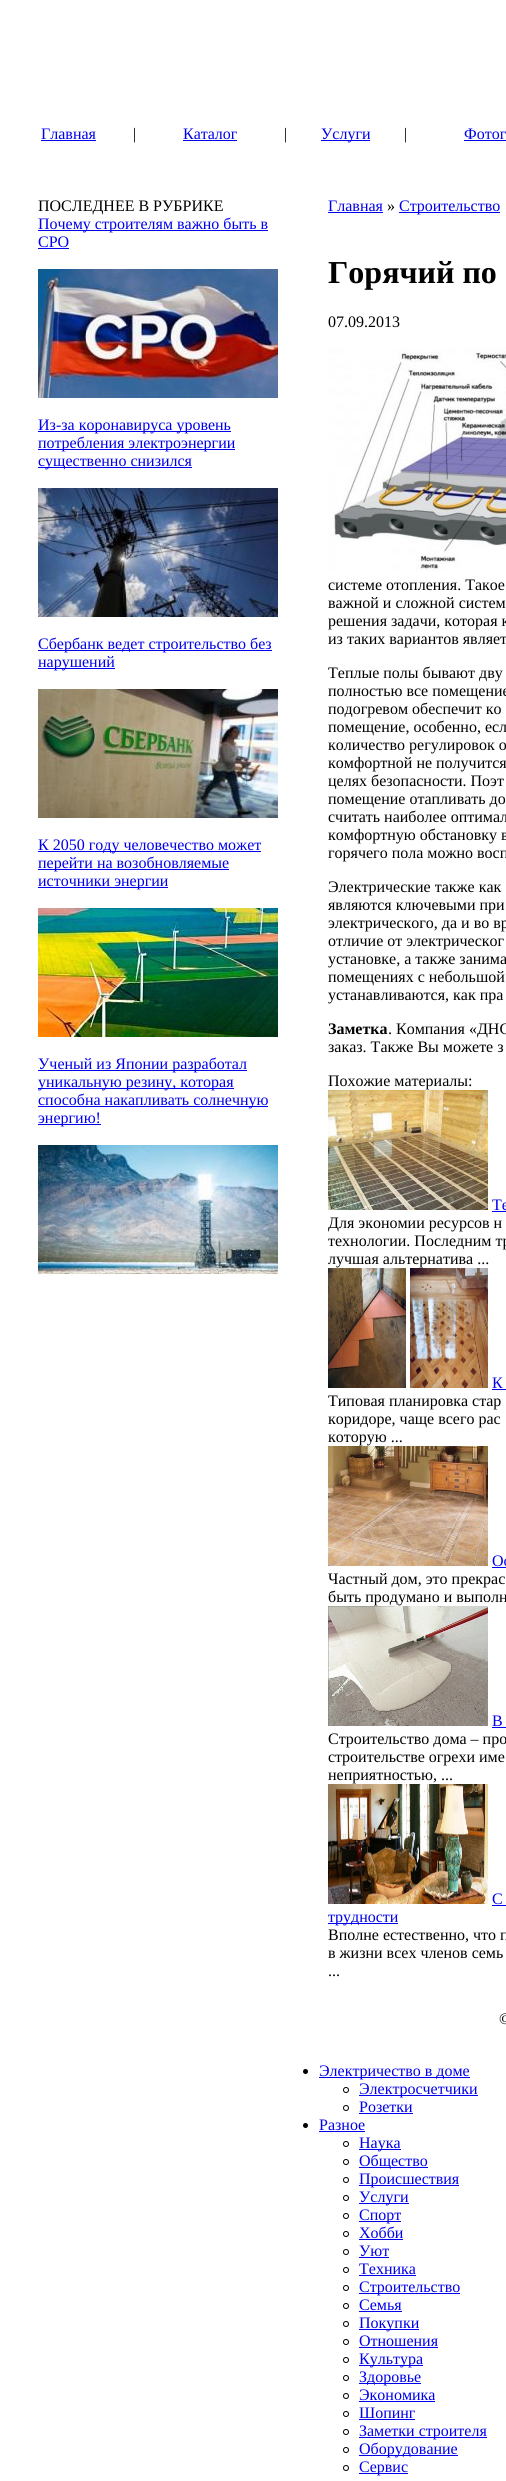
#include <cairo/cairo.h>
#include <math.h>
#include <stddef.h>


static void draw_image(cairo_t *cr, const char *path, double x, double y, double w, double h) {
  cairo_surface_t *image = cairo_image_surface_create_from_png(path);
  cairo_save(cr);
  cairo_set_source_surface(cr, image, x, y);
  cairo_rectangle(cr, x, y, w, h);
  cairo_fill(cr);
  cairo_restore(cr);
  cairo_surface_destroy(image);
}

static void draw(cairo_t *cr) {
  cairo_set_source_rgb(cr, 1, 1, 1);
  cairo_paint(cr);
  cairo_set_source_rgb(cr, 0, 0, 238 / 255.0);
  cairo_rectangle(cr, 41, 140, 55, 1);
  cairo_fill(cr);
  cairo_rectangle(cr, 183, 140, 54, 1);
  cairo_fill(cr);
  cairo_rectangle(cr, 321, 140, 49, 1);
  cairo_fill(cr);
  cairo_rectangle(cr, 464, 140, 42, 1);
  cairo_fill(cr);
  cairo_rectangle(cr, 38, 230, 230, 1);
  cairo_fill(cr);
  cairo_rectangle(cr, 38, 248, 31, 1);
  cairo_fill(cr);
  draw_image(cr, "images/1.png", 38, 269, 240, 129);
  cairo_rectangle(cr, 38, 431, 193, 1);
  cairo_fill(cr);
  cairo_rectangle(cr, 38, 449, 197, 1);
  cairo_fill(cr);
  cairo_rectangle(cr, 38, 467, 154, 1);
  cairo_fill(cr);
  draw_image(cr, "images/2.png", 38, 488, 240, 129);
  cairo_rectangle(cr, 38, 650, 234, 1);
  cairo_fill(cr);
  cairo_rectangle(cr, 38, 668, 77, 1);
  cairo_fill(cr);
  draw_image(cr, "images/3.png", 38, 689, 240, 129);
  cairo_rectangle(cr, 38, 851, 223, 1);
  cairo_fill(cr);
  cairo_rectangle(cr, 38, 869, 191, 1);
  cairo_fill(cr);
  cairo_rectangle(cr, 38, 887, 130, 1);
  cairo_fill(cr);
  draw_image(cr, "images/4.png", 38, 908, 240, 129);
  cairo_rectangle(cr, 38, 1070, 209, 1);
  cairo_fill(cr);
  cairo_rectangle(cr, 38, 1088, 196, 1);
  cairo_fill(cr);
  cairo_rectangle(cr, 38, 1106, 230, 1);
  cairo_fill(cr);
  cairo_rectangle(cr, 38, 1124, 63, 1);
  cairo_fill(cr);
  draw_image(cr, "images/5.png", 38, 1145, 240, 129);
  cairo_rectangle(cr, 328, 212, 55, 1);
  cairo_fill(cr);
  cairo_rectangle(cr, 399, 212, 101, 1);
  cairo_fill(cr);
  draw_image(cr, "images/6.png", 328, 347, 178, 224);
  draw_image(cr, "images/7.png", 328, 1090, 160, 120);
  cairo_rectangle(cr, 492, 1211, 14, 1);
  cairo_fill(cr);
  draw_image(cr, "images/8.png", 328, 1268, 160, 120);
  cairo_rectangle(cr, 492, 1389, 14, 1);
  cairo_fill(cr);
  draw_image(cr, "images/9.png", 328, 1446, 160, 120);
  cairo_rectangle(cr, 492, 1567, 14, 1);
  cairo_fill(cr);
  draw_image(cr, "images/10.png", 328, 1606, 160, 120);
  cairo_rectangle(cr, 492, 1727, 14, 1);
  cairo_fill(cr);
  draw_image(cr, "images/11.png", 328, 1784, 160, 120);
  cairo_rectangle(cr, 492, 1905, 14, 1);
  cairo_fill(cr);
  cairo_rectangle(cr, 328, 1923, 70, 1);
  cairo_fill(cr);
  cairo_set_source_rgb(cr, 0, 0, 0);
  cairo_arc(cr, 305.5, 2071.5, 2.5, 0, 2 * M_PI);
  cairo_fill(cr);
  cairo_set_source_rgb(cr, 0, 0, 238 / 255.0);
  cairo_rectangle(cr, 319, 2077, 151, 1);
  cairo_fill(cr);
  cairo_arc(cr, 346, 2090, 2.5, 0, 2 * M_PI);
  cairo_set_source_rgb(cr, 0, 0, 0);
  cairo_set_line_width(cr, 1);
  cairo_stroke(cr);
  cairo_set_source_rgb(cr, 0, 0, 238 / 255.0);
  cairo_rectangle(cr, 359, 2095, 119, 1);
  cairo_fill(cr);
  cairo_arc(cr, 346, 2108, 2.5, 0, 2 * M_PI);
  cairo_set_source_rgb(cr, 0, 0, 0);
  cairo_stroke(cr);
  cairo_set_source_rgb(cr, 0, 0, 238 / 255.0);
  cairo_rectangle(cr, 359, 2113, 54, 1);
  cairo_fill(cr);
  cairo_set_source_rgb(cr, 0, 0, 0);
  cairo_arc(cr, 305.5, 2125.5, 2.5, 0, 2 * M_PI);
  cairo_fill(cr);
  cairo_set_source_rgb(cr, 0, 0, 238 / 255.0);
  cairo_rectangle(cr, 319, 2131, 46, 1);
  cairo_fill(cr);
  cairo_arc(cr, 346, 2144, 2.5, 0, 2 * M_PI);
  cairo_set_source_rgb(cr, 0, 0, 0);
  cairo_stroke(cr);
  cairo_set_source_rgb(cr, 0, 0, 238 / 255.0);
  cairo_rectangle(cr, 359, 2149, 42, 1);
  cairo_fill(cr);
  cairo_arc(cr, 346, 2162, 2.5, 0, 2 * M_PI);
  cairo_set_source_rgb(cr, 0, 0, 0);
  cairo_stroke(cr);
  cairo_set_source_rgb(cr, 0, 0, 238 / 255.0);
  cairo_rectangle(cr, 359, 2167, 69, 1);
  cairo_fill(cr);
  cairo_arc(cr, 346, 2180, 2.5, 0, 2 * M_PI);
  cairo_set_source_rgb(cr, 0, 0, 0);
  cairo_stroke(cr);
  cairo_set_source_rgb(cr, 0, 0, 238 / 255.0);
  cairo_rectangle(cr, 359, 2185, 100, 1);
  cairo_fill(cr);
  cairo_arc(cr, 346, 2198, 2.5, 0, 2 * M_PI);
  cairo_set_source_rgb(cr, 0, 0, 0);
  cairo_stroke(cr);
  cairo_set_source_rgb(cr, 0, 0, 238 / 255.0);
  cairo_rectangle(cr, 359, 2203, 50, 1);
  cairo_fill(cr);
  cairo_arc(cr, 346, 2216, 2.5, 0, 2 * M_PI);
  cairo_set_source_rgb(cr, 0, 0, 0);
  cairo_stroke(cr);
  cairo_set_source_rgb(cr, 0, 0, 238 / 255.0);
  cairo_rectangle(cr, 359, 2221, 42, 1);
  cairo_fill(cr);
  cairo_arc(cr, 346, 2234, 2.5, 0, 2 * M_PI);
  cairo_set_source_rgb(cr, 0, 0, 0);
  cairo_stroke(cr);
  cairo_set_source_rgb(cr, 0, 0, 238 / 255.0);
  cairo_rectangle(cr, 359, 2239, 44, 1);
  cairo_fill(cr);
  cairo_arc(cr, 346, 2252, 2.5, 0, 2 * M_PI);
  cairo_set_source_rgb(cr, 0, 0, 0);
  cairo_stroke(cr);
  cairo_set_source_rgb(cr, 0, 0, 238 / 255.0);
  cairo_rectangle(cr, 359, 2257, 30, 1);
  cairo_fill(cr);
  cairo_arc(cr, 346, 2270, 2.5, 0, 2 * M_PI);
  cairo_set_source_rgb(cr, 0, 0, 0);
  cairo_stroke(cr);
  cairo_set_source_rgb(cr, 0, 0, 238 / 255.0);
  cairo_rectangle(cr, 359, 2275, 57, 1);
  cairo_fill(cr);
  cairo_arc(cr, 346, 2288, 2.5, 0, 2 * M_PI);
  cairo_set_source_rgb(cr, 0, 0, 0);
  cairo_stroke(cr);
  cairo_set_source_rgb(cr, 0, 0, 238 / 255.0);
  cairo_rectangle(cr, 359, 2293, 101, 1);
  cairo_fill(cr);
  cairo_arc(cr, 346, 2306, 2.5, 0, 2 * M_PI);
  cairo_set_source_rgb(cr, 0, 0, 0);
  cairo_stroke(cr);
  cairo_set_source_rgb(cr, 0, 0, 238 / 255.0);
  cairo_rectangle(cr, 359, 2311, 43, 1);
  cairo_fill(cr);
  cairo_arc(cr, 346, 2324, 2.5, 0, 2 * M_PI);
  cairo_set_source_rgb(cr, 0, 0, 0);
  cairo_stroke(cr);
  cairo_set_source_rgb(cr, 0, 0, 238 / 255.0);
  cairo_rectangle(cr, 359, 2329, 60, 1);
  cairo_fill(cr);
  cairo_arc(cr, 346, 2342, 2.5, 0, 2 * M_PI);
  cairo_set_source_rgb(cr, 0, 0, 0);
  cairo_stroke(cr);
  cairo_set_source_rgb(cr, 0, 0, 238 / 255.0);
  cairo_rectangle(cr, 359, 2347, 79, 1);
  cairo_fill(cr);
  cairo_arc(cr, 346, 2360, 2.5, 0, 2 * M_PI);
  cairo_set_source_rgb(cr, 0, 0, 0);
  cairo_stroke(cr);
  cairo_set_source_rgb(cr, 0, 0, 238 / 255.0);
  cairo_rectangle(cr, 359, 2365, 64, 1);
  cairo_fill(cr);
  cairo_arc(cr, 346, 2378, 2.5, 0, 2 * M_PI);
  cairo_set_source_rgb(cr, 0, 0, 0);
  cairo_stroke(cr);
  cairo_set_source_rgb(cr, 0, 0, 238 / 255.0);
  cairo_rectangle(cr, 359, 2383, 62, 1);
  cairo_fill(cr);
  cairo_arc(cr, 346, 2396, 2.5, 0, 2 * M_PI);
  cairo_set_source_rgb(cr, 0, 0, 0);
  cairo_stroke(cr);
  cairo_set_source_rgb(cr, 0, 0, 238 / 255.0);
  cairo_rectangle(cr, 359, 2401, 76, 1);
  cairo_fill(cr);
  cairo_arc(cr, 346, 2414, 2.5, 0, 2 * M_PI);
  cairo_set_source_rgb(cr, 0, 0, 0);
  cairo_stroke(cr);
  cairo_set_source_rgb(cr, 0, 0, 238 / 255.0);
  cairo_rectangle(cr, 359, 2419, 56, 1);
  cairo_fill(cr);
  cairo_arc(cr, 346, 2432, 2.5, 0, 2 * M_PI);
  cairo_set_source_rgb(cr, 0, 0, 0);
  cairo_stroke(cr);
  cairo_set_source_rgb(cr, 0, 0, 238 / 255.0);
  cairo_rectangle(cr, 359, 2437, 128, 1);
  cairo_fill(cr);
  cairo_arc(cr, 346, 2450, 2.5, 0, 2 * M_PI);
  cairo_set_source_rgb(cr, 0, 0, 0);
  cairo_stroke(cr);
  cairo_set_source_rgb(cr, 0, 0, 238 / 255.0);
  cairo_rectangle(cr, 359, 2455, 99, 1);
  cairo_fill(cr);
  cairo_arc(cr, 346, 2468, 2.5, 0, 2 * M_PI);
  cairo_set_source_rgb(cr, 0, 0, 0);
  cairo_stroke(cr);
  cairo_set_source_rgb(cr, 0, 0, 238 / 255.0);
  cairo_rectangle(cr, 359, 2473, 49, 1);
  cairo_fill(cr);
  cairo_select_font_face(cr, "Liberation Serif", CAIRO_FONT_SLANT_NORMAL, CAIRO_FONT_WEIGHT_NORMAL);
  cairo_set_font_size(cr, 16);
  cairo_move_to(cr, 41, 139);
  cairo_show_text(cr, "Главная");
  cairo_set_source_rgb(cr, 0, 0, 0);
  cairo_move_to(cr, 133, 139);
  cairo_show_text(cr, "|");
  cairo_set_source_rgb(cr, 0, 0, 238 / 255.0);
  cairo_move_to(cr, 183, 139);
  cairo_show_text(cr, "Каталог");
  cairo_set_source_rgb(cr, 0, 0, 0);
  cairo_move_to(cr, 284, 139);
  cairo_show_text(cr, "|");
  cairo_set_source_rgb(cr, 0, 0, 238 / 255.0);
  cairo_move_to(cr, 321, 139);
  cairo_show_text(cr, "Услуги");
  cairo_set_source_rgb(cr, 0, 0, 0);
  cairo_move_to(cr, 404, 139);
  cairo_show_text(cr, "|");
  cairo_set_source_rgb(cr, 0, 0, 238 / 255.0);
  cairo_move_to(cr, 464, 139);
  cairo_show_text(cr, "Фотог");
  cairo_set_source_rgb(cr, 0, 0, 0);
  cairo_move_to(cr, 38, 211);
  cairo_show_text(cr, "ПОСЛЕДНЕЕ В РУБРИКЕ");
  cairo_set_source_rgb(cr, 0, 0, 238 / 255.0);
  cairo_move_to(cr, 38, 229);
  cairo_show_text(cr, "Почему строителям важно быть в");
  cairo_move_to(cr, 38, 247);
  cairo_show_text(cr, "СРО");
  cairo_move_to(cr, 38, 430);
  cairo_show_text(cr, "Из-за коронавируса уровень");
  cairo_move_to(cr, 38, 448);
  cairo_show_text(cr, "потребления электроэнергии");
  cairo_move_to(cr, 38, 466);
  cairo_show_text(cr, "существенно снизился");
  cairo_move_to(cr, 38, 649);
  cairo_show_text(cr, "Сбербанк ведет строительство без");
  cairo_move_to(cr, 38, 667);
  cairo_show_text(cr, "нарушений");
  cairo_move_to(cr, 38, 850);
  cairo_show_text(cr, "К 2050 году человечество может");
  cairo_move_to(cr, 38, 868);
  cairo_show_text(cr, "перейти на возобновляемые");
  cairo_move_to(cr, 38, 886);
  cairo_show_text(cr, "источники энергии");
  cairo_move_to(cr, 38, 1069);
  cairo_show_text(cr, "Ученый из Японии разработал");
  cairo_move_to(cr, 38, 1087);
  cairo_show_text(cr, "уникальную резину, которая");
  cairo_move_to(cr, 38, 1105);
  cairo_show_text(cr, "способна накапливать солнечную");
  cairo_move_to(cr, 38, 1123);
  cairo_show_text(cr, "энергию!");
  cairo_move_to(cr, 328, 211);
  cairo_show_text(cr, "Главная");
  cairo_set_source_rgb(cr, 0, 0, 0);
  cairo_move_to(cr, 387, 211);
  cairo_show_text(cr, "»");
  cairo_set_source_rgb(cr, 0, 0, 238 / 255.0);
  cairo_move_to(cr, 399, 211);
  cairo_show_text(cr, "Строительство");
  cairo_select_font_face(cr, "Liberation Serif", CAIRO_FONT_SLANT_NORMAL, CAIRO_FONT_WEIGHT_BOLD);
  cairo_set_font_size(cr, 32);
  cairo_set_source_rgb(cr, 0, 0, 0);
  cairo_move_to(cr, 328, 283);
  cairo_show_text(cr, "Горячий по");
  cairo_select_font_face(cr, "Liberation Serif", CAIRO_FONT_SLANT_NORMAL, CAIRO_FONT_WEIGHT_NORMAL);
  cairo_set_font_size(cr, 16);
  cairo_move_to(cr, 328, 327);
  cairo_show_text(cr, "07.09.2013");
  cairo_move_to(cr, 328, 590);
  cairo_show_text(cr, "системе отопления. Такое");
  cairo_move_to(cr, 328, 608);
  cairo_show_text(cr, "важной и сложной систем");
  cairo_move_to(cr, 328, 626);
  cairo_show_text(cr, "решения задачи, которая к");
  cairo_move_to(cr, 328, 644);
  cairo_show_text(cr, "из таких вариантов являет");
  cairo_move_to(cr, 328, 678);
  cairo_show_text(cr, "Теплые полы бывают дву");
  cairo_move_to(cr, 328, 696);
  cairo_show_text(cr, "полностью все помещение");
  cairo_move_to(cr, 328, 714);
  cairo_show_text(cr, "подогревом обеспечит ко");
  cairo_move_to(cr, 328, 732);
  cairo_show_text(cr, "помещение, особенно, есл");
  cairo_move_to(cr, 328, 750);
  cairo_show_text(cr, "количество регулировок о");
  cairo_move_to(cr, 328, 768);
  cairo_show_text(cr, "комфортной не получится");
  cairo_move_to(cr, 328, 786);
  cairo_show_text(cr, "целях безопасности. Поэт");
  cairo_move_to(cr, 328, 804);
  cairo_show_text(cr, "помещение отапливать до");
  cairo_move_to(cr, 328, 822);
  cairo_show_text(cr, "считать наиболее оптимал");
  cairo_move_to(cr, 328, 840);
  cairo_show_text(cr, "комфортную обстановку в");
  cairo_move_to(cr, 328, 858);
  cairo_show_text(cr, "горячего пола можно восп");
  cairo_move_to(cr, 328, 892);
  cairo_show_text(cr, "Электрические также как");
  cairo_move_to(cr, 328, 910);
  cairo_show_text(cr, "являются ключевыми при");
  cairo_move_to(cr, 328, 928);
  cairo_show_text(cr, "электрического, да и во вр");
  cairo_move_to(cr, 328, 946);
  cairo_show_text(cr, "отличие от электрическог");
  cairo_move_to(cr, 328, 964);
  cairo_show_text(cr, "установке, а также занима");
  cairo_move_to(cr, 328, 982);
  cairo_show_text(cr, "помещениях с небольшой");
  cairo_move_to(cr, 328, 1000);
  cairo_show_text(cr, "устанавливаются, как пра");
  cairo_select_font_face(cr, "Liberation Serif", CAIRO_FONT_SLANT_NORMAL, CAIRO_FONT_WEIGHT_BOLD);
  cairo_move_to(cr, 328, 1034);
  cairo_show_text(cr, "Заметка");
  cairo_select_font_face(cr, "Liberation Serif", CAIRO_FONT_SLANT_NORMAL, CAIRO_FONT_WEIGHT_NORMAL);
  cairo_move_to(cr, 388, 1034);
  cairo_show_text(cr, ". Компания «ДНС");
  cairo_move_to(cr, 328, 1052);
  cairo_show_text(cr, "заказ. Также Вы можете з");
  cairo_move_to(cr, 328, 1086);
  cairo_show_text(cr, "Похожие материалы:");
  cairo_set_source_rgb(cr, 0, 0, 238 / 255.0);
  cairo_move_to(cr, 492, 1210);
  cairo_show_text(cr, "Те");
  cairo_set_source_rgb(cr, 0, 0, 0);
  cairo_move_to(cr, 328, 1228);
  cairo_show_text(cr, "Для экономии ресурсов н");
  cairo_move_to(cr, 328, 1246);
  cairo_show_text(cr, "технологии. Последним тр");
  cairo_move_to(cr, 328, 1264);
  cairo_show_text(cr, "лучшая альтернатива ...");
  cairo_set_source_rgb(cr, 0, 0, 238 / 255.0);
  cairo_move_to(cr, 492, 1388);
  cairo_show_text(cr, "К");
  cairo_set_source_rgb(cr, 0, 0, 0);
  cairo_move_to(cr, 328, 1406);
  cairo_show_text(cr, "Типовая планировка стар");
  cairo_move_to(cr, 328, 1424);
  cairo_show_text(cr, "коридоре, чаще всего рас");
  cairo_move_to(cr, 328, 1442);
  cairo_show_text(cr, "которую ...");
  cairo_set_source_rgb(cr, 0, 0, 238 / 255.0);
  cairo_move_to(cr, 492, 1566);
  cairo_show_text(cr, "Ос");
  cairo_set_source_rgb(cr, 0, 0, 0);
  cairo_move_to(cr, 328, 1584);
  cairo_show_text(cr, "Частный дом, это прекрас");
  cairo_move_to(cr, 328, 1602);
  cairo_show_text(cr, "быть продумано и выполн");
  cairo_set_source_rgb(cr, 0, 0, 238 / 255.0);
  cairo_move_to(cr, 492, 1726);
  cairo_show_text(cr, "В");
  cairo_set_source_rgb(cr, 0, 0, 0);
  cairo_move_to(cr, 328, 1744);
  cairo_show_text(cr, "Строительство дома – про");
  cairo_move_to(cr, 328, 1762);
  cairo_show_text(cr, "строительстве огрехи име");
  cairo_move_to(cr, 328, 1780);
  cairo_show_text(cr, "неприятностью, ...");
  cairo_set_source_rgb(cr, 0, 0, 238 / 255.0);
  cairo_move_to(cr, 492, 1904);
  cairo_show_text(cr, "С");
  cairo_move_to(cr, 328, 1922);
  cairo_show_text(cr, "трудности");
  cairo_set_source_rgb(cr, 0, 0, 0);
  cairo_move_to(cr, 328, 1940);
  cairo_show_text(cr, "Вполне естественно, что п");
  cairo_move_to(cr, 328, 1958);
  cairo_show_text(cr, "в жизни всех членов семь");
  cairo_move_to(cr, 328, 1976);
  cairo_show_text(cr, "...");
  cairo_move_to(cr, 499, 2024);
  cairo_show_text(cr, "©");
  cairo_set_source_rgb(cr, 0, 0, 238 / 255.0);
  cairo_move_to(cr, 319, 2076);
  cairo_show_text(cr, "Электричество в доме");
  cairo_move_to(cr, 359, 2094);
  cairo_show_text(cr, "Электросчетчики");
  cairo_move_to(cr, 359, 2112);
  cairo_show_text(cr, "Розетки");
  cairo_move_to(cr, 319, 2130);
  cairo_show_text(cr, "Разное");
  cairo_move_to(cr, 359, 2148);
  cairo_show_text(cr, "Наука");
  cairo_move_to(cr, 359, 2166);
  cairo_show_text(cr, "Общество");
  cairo_move_to(cr, 359, 2184);
  cairo_show_text(cr, "Происшествия");
  cairo_move_to(cr, 359, 2202);
  cairo_show_text(cr, "Услуги");
  cairo_move_to(cr, 359, 2220);
  cairo_show_text(cr, "Спорт");
  cairo_move_to(cr, 359, 2238);
  cairo_show_text(cr, "Хобби");
  cairo_move_to(cr, 359, 2256);
  cairo_show_text(cr, "Уют");
  cairo_move_to(cr, 359, 2274);
  cairo_show_text(cr, "Техника");
  cairo_move_to(cr, 359, 2292);
  cairo_show_text(cr, "Строительство");
  cairo_move_to(cr, 359, 2310);
  cairo_show_text(cr, "Семья");
  cairo_move_to(cr, 359, 2328);
  cairo_show_text(cr, "Покупки");
  cairo_move_to(cr, 359, 2346);
  cairo_show_text(cr, "Отношения");
  cairo_move_to(cr, 359, 2364);
  cairo_show_text(cr, "Культура");
  cairo_move_to(cr, 359, 2382);
  cairo_show_text(cr, "Здоровье");
  cairo_move_to(cr, 359, 2400);
  cairo_show_text(cr, "Экономика");
  cairo_move_to(cr, 359, 2418);
  cairo_show_text(cr, "Шопинг");
  cairo_move_to(cr, 359, 2436);
  cairo_show_text(cr, "Заметки строителя");
  cairo_move_to(cr, 359, 2454);
  cairo_show_text(cr, "Оборудование");
  cairo_move_to(cr, 359, 2472);
  cairo_show_text(cr, "Сервис");
}

int main(void) {
  cairo_surface_t *surface = cairo_image_surface_create(CAIRO_FORMAT_RGB24, 506, 2481);
  cairo_t *cr = cairo_create(surface);
  cairo_font_options_t *options = cairo_font_options_create();
  cairo_font_options_set_hint_metrics(options, CAIRO_HINT_METRICS_OFF);
  cairo_font_options_set_hint_style(options, CAIRO_HINT_STYLE_NONE);
  cairo_set_font_options(cr, options);
  cairo_set_miter_limit(cr, 4);
  draw(cr);
  cairo_surface_write_to_png(surface, "out.png");
  cairo_font_options_destroy(options);
  cairo_destroy(cr);
  cairo_surface_destroy(surface);
  return 0;
}
